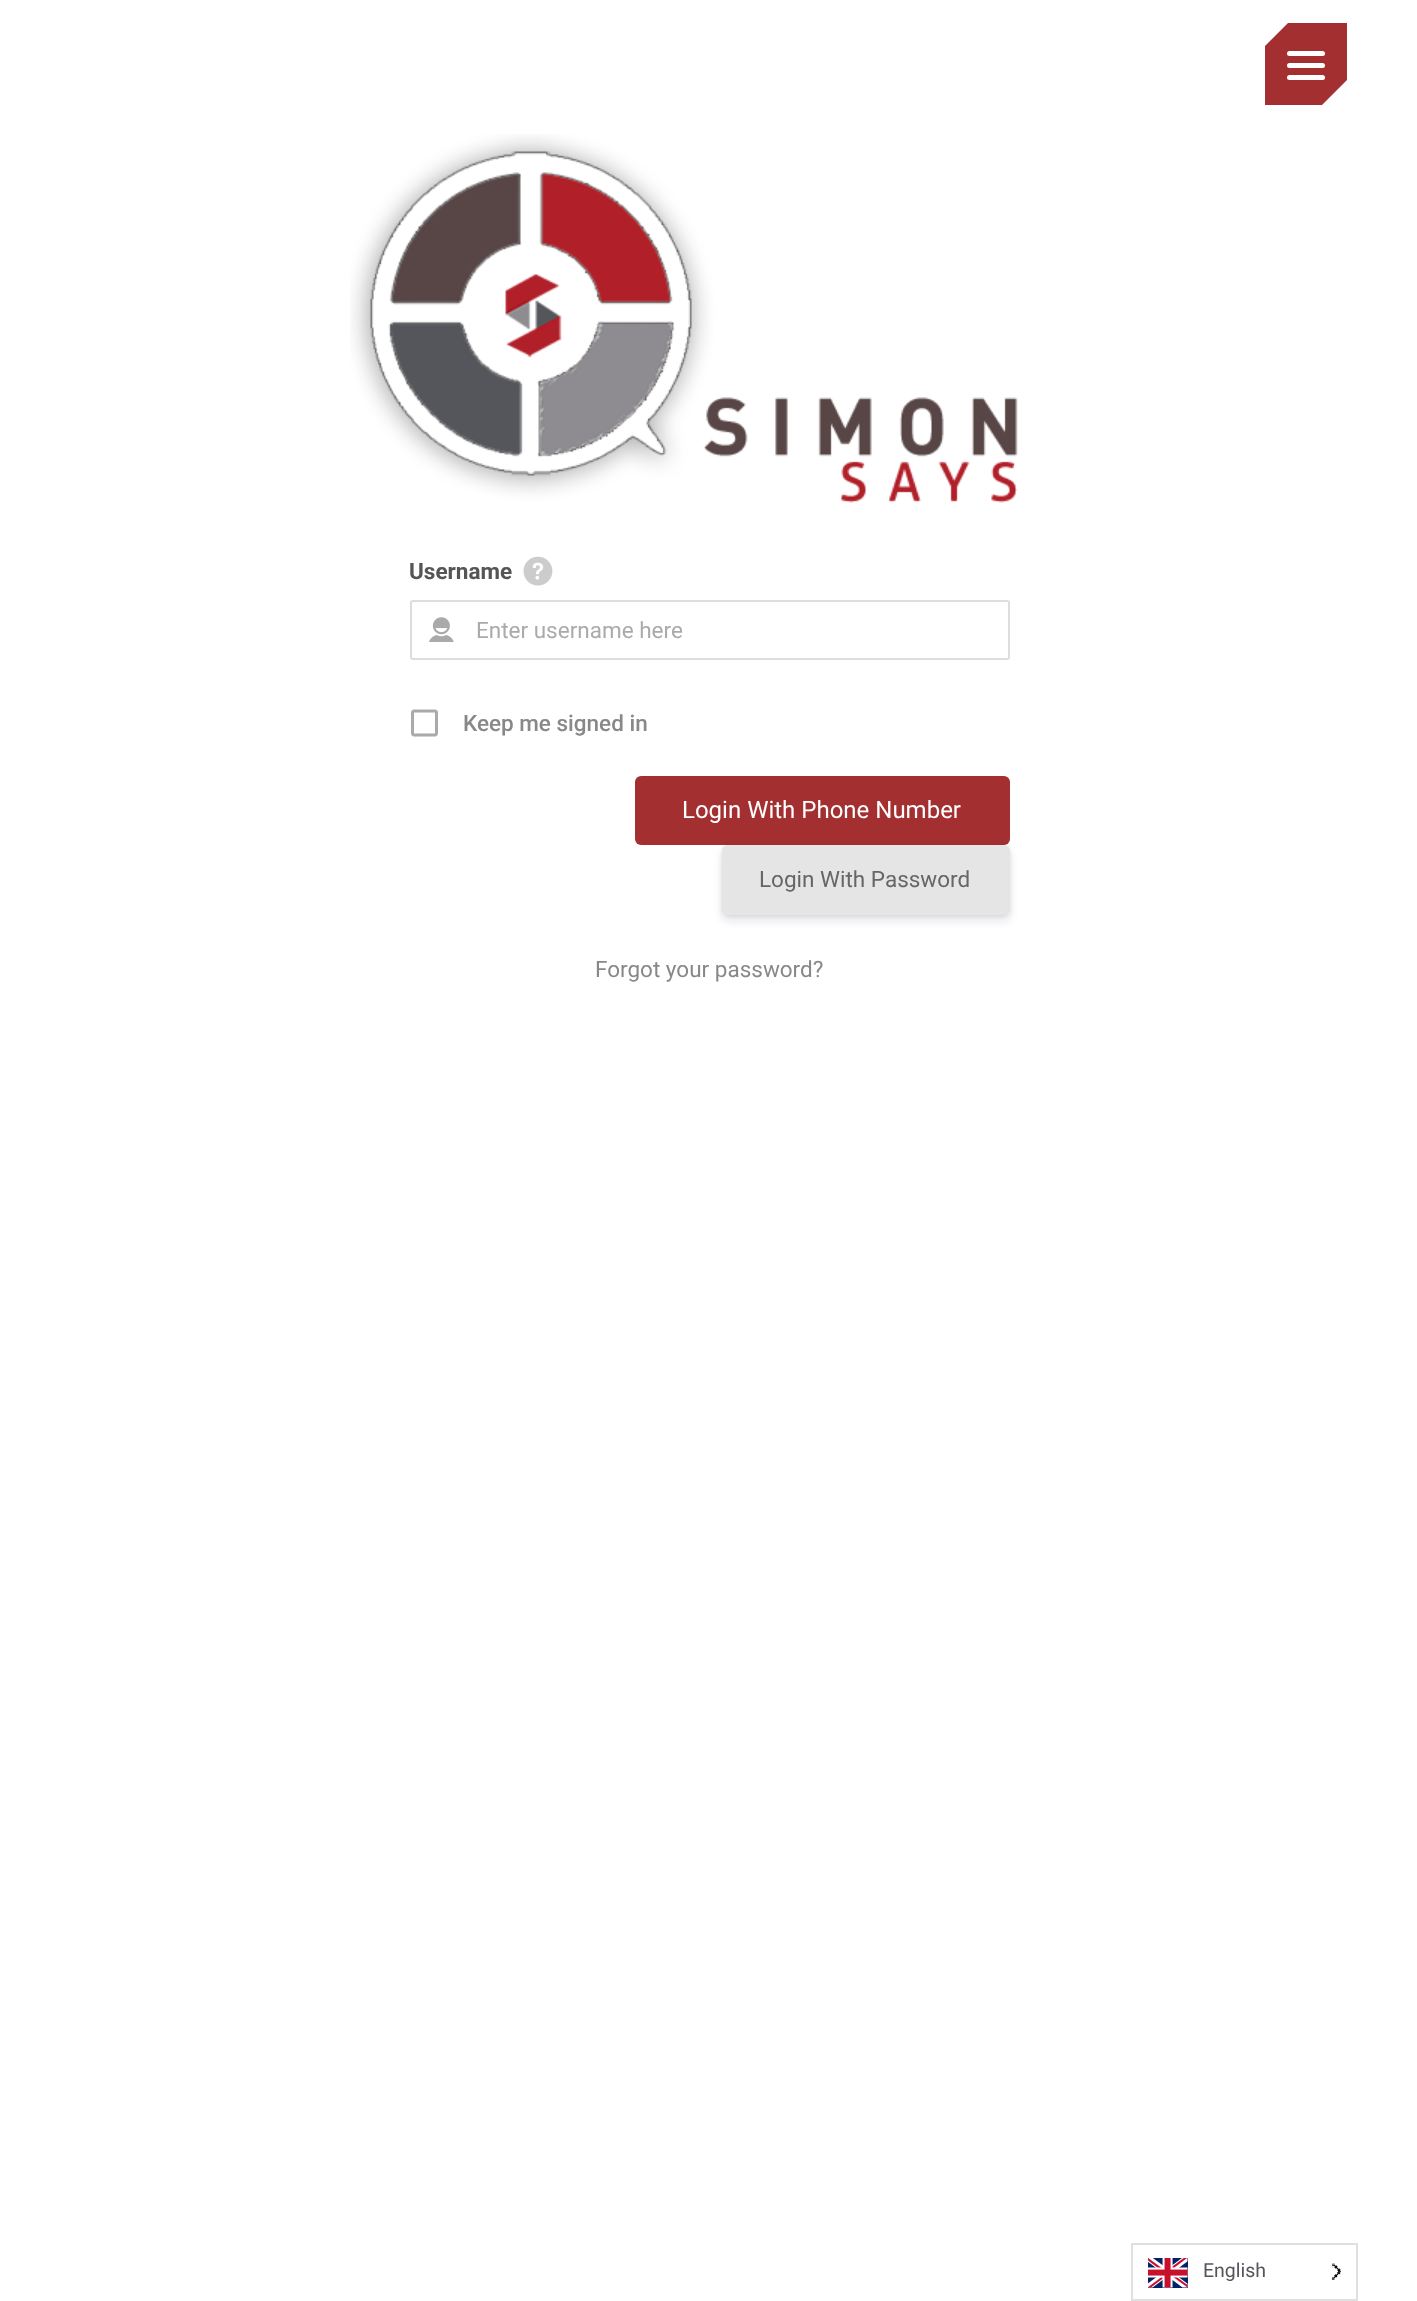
<svg xmlns="http://www.w3.org/2000/svg" width="1417" height="2301" viewBox="0 0 1417 2301">
  <defs>
    <filter id="blur1" x="-50%" y="-200%" width="200%" height="500%"><feGaussianBlur stdDeviation="2"/></filter>
    <filter id="blur2" x="-50%" y="-200%" width="200%" height="500%"><feGaussianBlur stdDeviation="4.5"/></filter>
  </defs>
  <rect width="100%" height="100%" fill="#ffffff"/>
  <path d="M1265 46L1288 23H1347V80L1322 105H1265Z" fill="#a32f30"/>
  <rect x="1287" y="51" width="38" height="5" rx="2.5" fill="#ffffff"/>
  <rect x="1287" y="63" width="38" height="5" rx="2.5" fill="#ffffff"/>
  <rect x="1287" y="75" width="38" height="5" rx="2.5" fill="#ffffff"/>
  <image x="350" y="134" width="668" height="369" href="img1.png"/>
  <text x="409" y="579" font-family="Roboto" font-size="22.5" font-weight="bold" fill="#555555">Username</text>
  <image x="523" y="556" width="30" height="30" href="img2.png"/>
  <rect x="411" y="601" width="598" height="58" rx="2" fill="none" stroke="#dddddd" stroke-width="2"/>
  <image x="429" y="617" width="25" height="25" href="img3.png"/>
  <text x="476" y="638" font-family="Roboto" font-size="22.5" fill="#aaaaaa">Enter username here</text>
  <image x="411" y="709" width="27" height="28" href="img4.png"/>
  <text x="463" y="731" font-family="Roboto" font-size="22.5" font-weight="500" fill="#888888">Keep me signed in</text>
  <rect x="635" y="776" width="375" height="69" rx="6" fill="#a32f30"/>
  <text x="682" y="818" font-family="Roboto" font-size="24" fill="#ffffff">Login With Phone Number</text>
  <rect x="722" y="846" width="288" height="71" rx="6" fill="#000000" fill-opacity="0.08" filter="url(#blur1)"/>
  <rect x="722" y="851" width="288" height="70" rx="6" fill="#32325d" fill-opacity="0.11" filter="url(#blur2)"/>
  <rect x="722" y="845" width="288" height="70" rx="6" fill="#e5e5e5"/>
  <text x="759" y="887" font-family="Roboto" font-size="22.5" fill="#666666">Login With Password</text>
  <text x="595" y="977" font-family="Roboto" font-size="22.5" fill="#888888">Forgot your password?</text>
  <rect x="1132" y="2244" width="225" height="56" fill="none" stroke="#e0e0e0" stroke-width="2"/>
  <image x="1148" y="2258" width="40" height="30" href="img5.png"/>
  <text x="1203" y="2277" font-family="Roboto" font-size="19.5" fill="#54565b">English</text>
  <image x="1332" y="2263" width="9" height="17" href="img6.png"/>
</svg>
